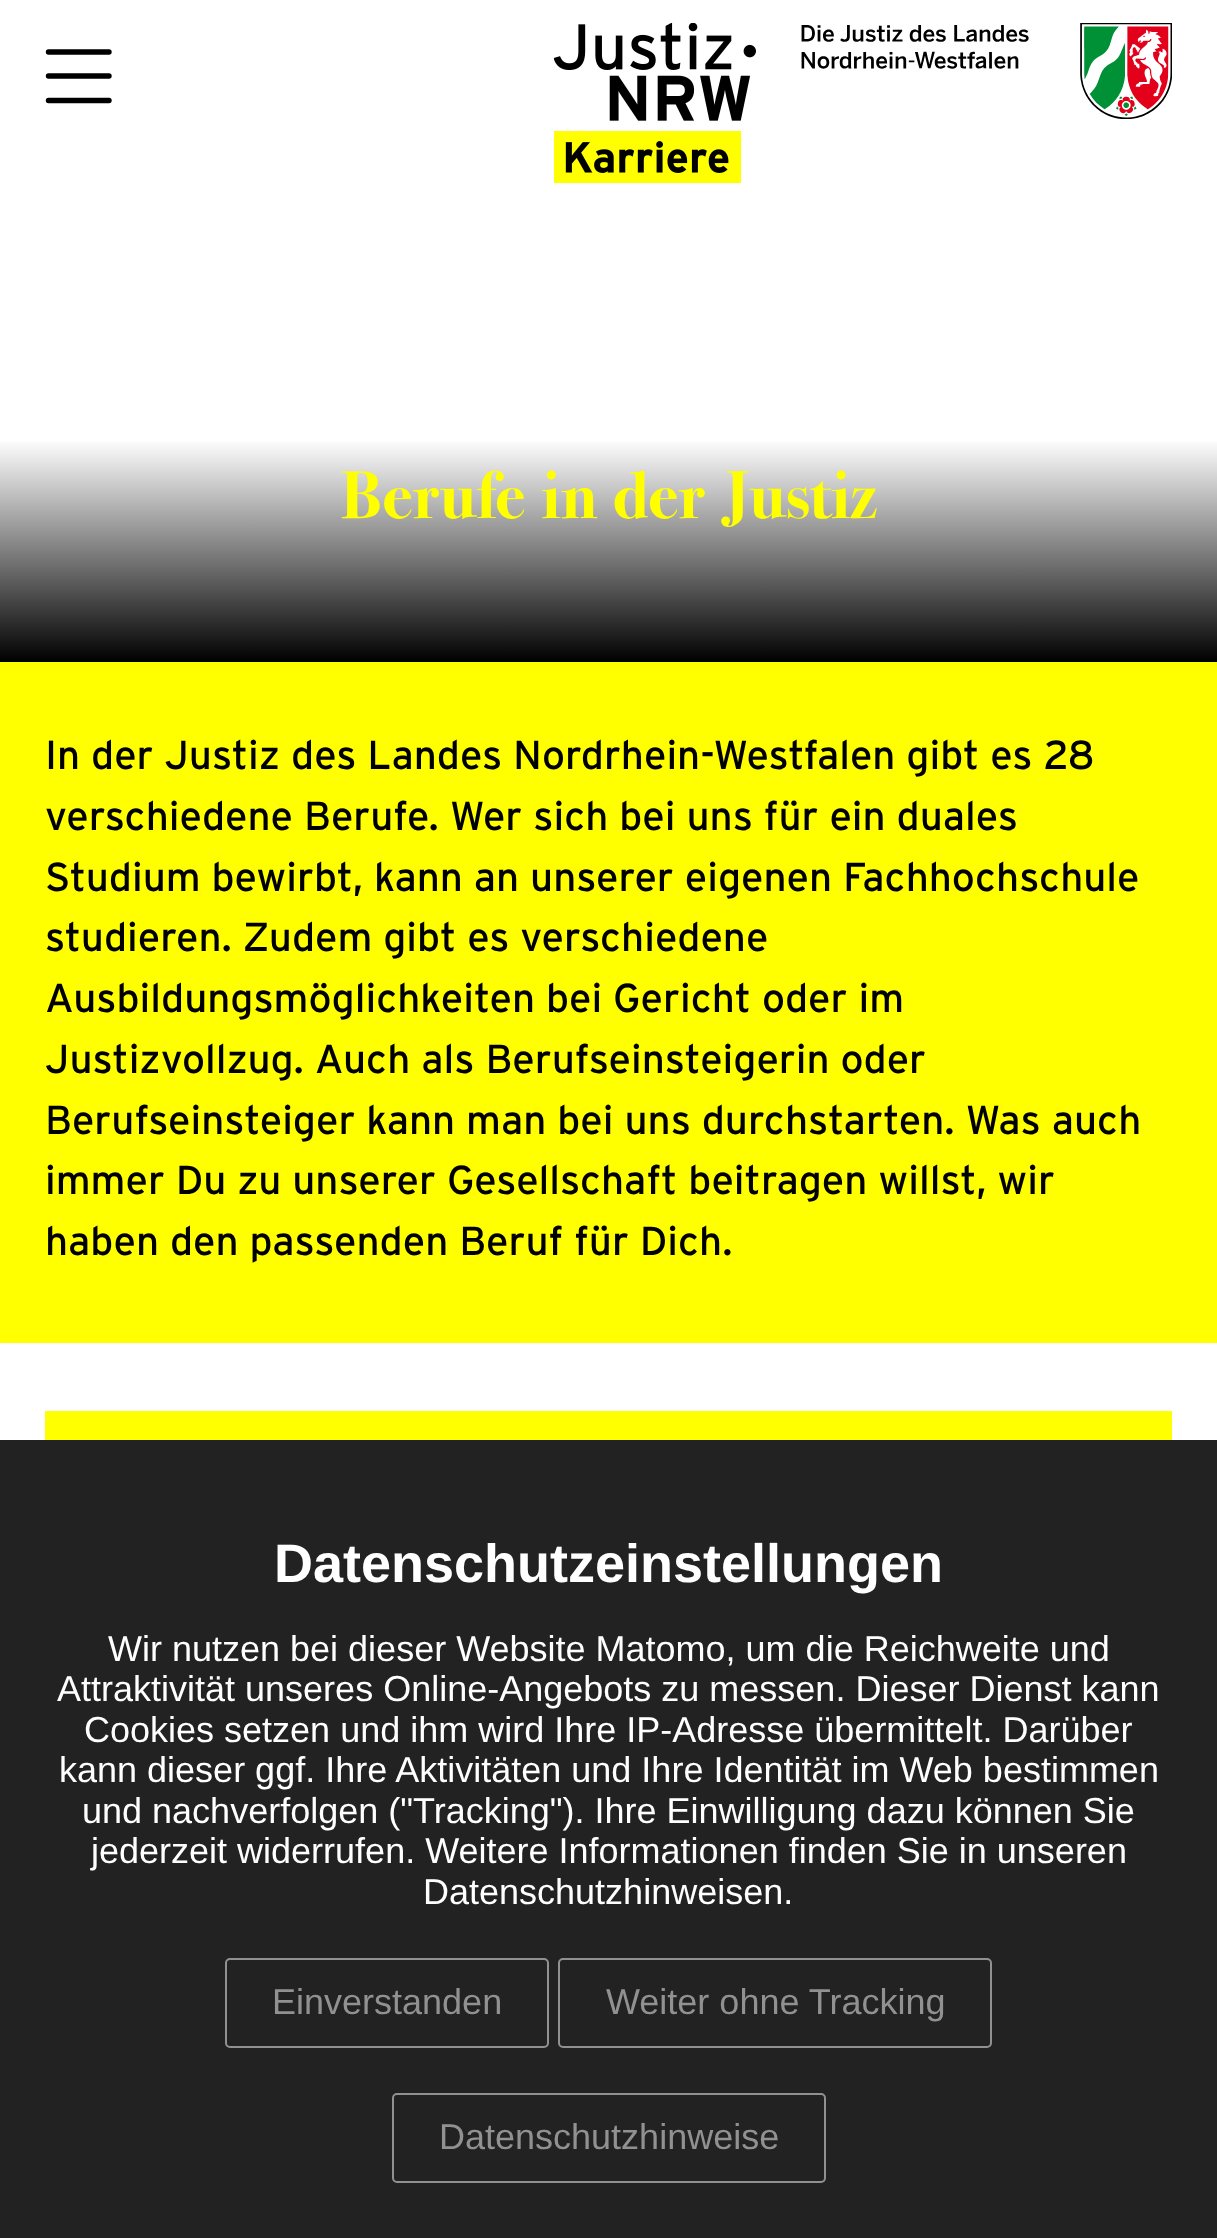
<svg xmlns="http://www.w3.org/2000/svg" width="1217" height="2238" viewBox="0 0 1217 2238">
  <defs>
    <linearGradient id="g1" gradientUnits="userSpaceOnUse" x1="609" y1="439" x2="609" y2="662"><stop offset="0" stop-color="#ffffff"/><stop offset="1" stop-color="#000000"/></linearGradient>
  </defs>
  <rect width="100%" height="100%" fill="#ffffff"/>
  <path d="M48.5 52H109" fill="none" stroke="#000000" stroke-width="5.4" stroke-linecap="round"/>
  <path d="M48.5 76H109" fill="none" stroke="#000000" stroke-width="5.4" stroke-linecap="round"/>
  <path d="M48.5 100.5H109" fill="none" stroke="#000000" stroke-width="5.4" stroke-linecap="round"/>
  <image x="554" y="23" width="202" height="160" href="img1.png"/>
  <image x="801" y="23" width="371" height="96" href="img2.png"/>
  <rect x="0" y="441" width="1217" height="221" fill="url(#g1)"/>
  <text x="341" y="518" font-family="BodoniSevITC" font-size="67.5" font-weight="bold" fill="#ffff00">Berufe in der Justiz</text>
  <rect x="0" y="662" width="1217" height="681" fill="#ffff00"/>
  <text x="45" y="769" font-family="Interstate" font-size="40.5" fill="#000000">In der Justiz des Landes Nordrhein-Westfalen gibt es 28</text>
  <text x="45" y="830" font-family="Interstate" font-size="40.5" fill="#000000">verschiedene Berufe. Wer sich bei uns für ein duales</text>
  <text x="45" y="891" font-family="Interstate" font-size="40.5" fill="#000000">Studium bewirbt, kann an unserer eigenen Fachhochschule</text>
  <text x="45" y="951" font-family="Interstate" font-size="40.5" fill="#000000">studieren. Zudem gibt es verschiedene</text>
  <text x="45" y="1012" font-family="Interstate" font-size="40.5" fill="#000000">Ausbildungsmöglichkeiten bei Gericht oder im</text>
  <text x="45" y="1073" font-family="Interstate" font-size="40.5" fill="#000000">Justizvollzug. Auch als Berufseinsteigerin oder</text>
  <text x="45" y="1134" font-family="Interstate" font-size="40.5" fill="#000000">Berufseinsteiger kann man bei uns durchstarten. Was auch</text>
  <text x="45" y="1194" font-family="Interstate" font-size="40.5" fill="#000000">immer Du zu unserer Gesellschaft beitragen willst, wir</text>
  <text x="45" y="1255" font-family="Interstate" font-size="40.5" fill="#000000">haben den passenden Beruf für Dich.</text>
  <rect x="45" y="1411" width="1127" height="29" fill="#ffff00"/>
  <rect x="0" y="1440" width="1217" height="798" fill="#222222"/>
  <text x="274" y="1582" font-family="Liberation Sans" font-size="54" font-weight="bold" fill="#ffffff">Datenschutzeinstellungen</text>
  <text x="108" y="1661" font-family="Liberation Sans" font-size="36" fill="#ffffff">Wir nutzen bei dieser Website Matomo, um die Reichweite und</text>
  <text x="57" y="1701" font-family="Liberation Sans" font-size="36" fill="#ffffff">Attraktivität unseres Online-Angebots zu messen. Dieser Dienst kann</text>
  <text x="84" y="1742" font-family="Liberation Sans" font-size="36" fill="#ffffff">Cookies setzen und ihm wird Ihre IP-Adresse übermittelt. Darüber</text>
  <text x="59" y="1782" font-family="Liberation Sans" font-size="36" fill="#ffffff">kann dieser ggf. Ihre Aktivitäten und Ihre Identität im Web bestimmen</text>
  <text x="82" y="1823" font-family="Liberation Sans" font-size="36" fill="#ffffff">und nachverfolgen ("Tracking"). Ihre Einwilligung dazu können Sie</text>
  <text x="91" y="1863" font-family="Liberation Sans" font-size="36" fill="#ffffff">jederzeit widerrufen. Weitere Informationen finden Sie in unseren</text>
  <text x="423" y="1904" font-family="Liberation Sans" font-size="36" fill="#ffffff">Datenschutzhinweisen.</text>
  <rect x="226" y="1959" width="322" height="88" rx="4" fill="none" stroke="#919191" stroke-width="2"/>
  <text x="272" y="2014" font-family="Liberation Sans" font-size="36" fill="#919191">Einverstanden</text>
  <rect x="559" y="1959" width="432" height="88" rx="4" fill="none" stroke="#919191" stroke-width="2"/>
  <text x="606" y="2014" font-family="Liberation Sans" font-size="36" fill="#919191">Weiter ohne Tracking</text>
  <rect x="393" y="2094" width="432" height="88" rx="4" fill="none" stroke="#919191" stroke-width="2"/>
  <text x="439" y="2149" font-family="Liberation Sans" font-size="36" fill="#919191">Datenschutzhinweise</text>
</svg>
